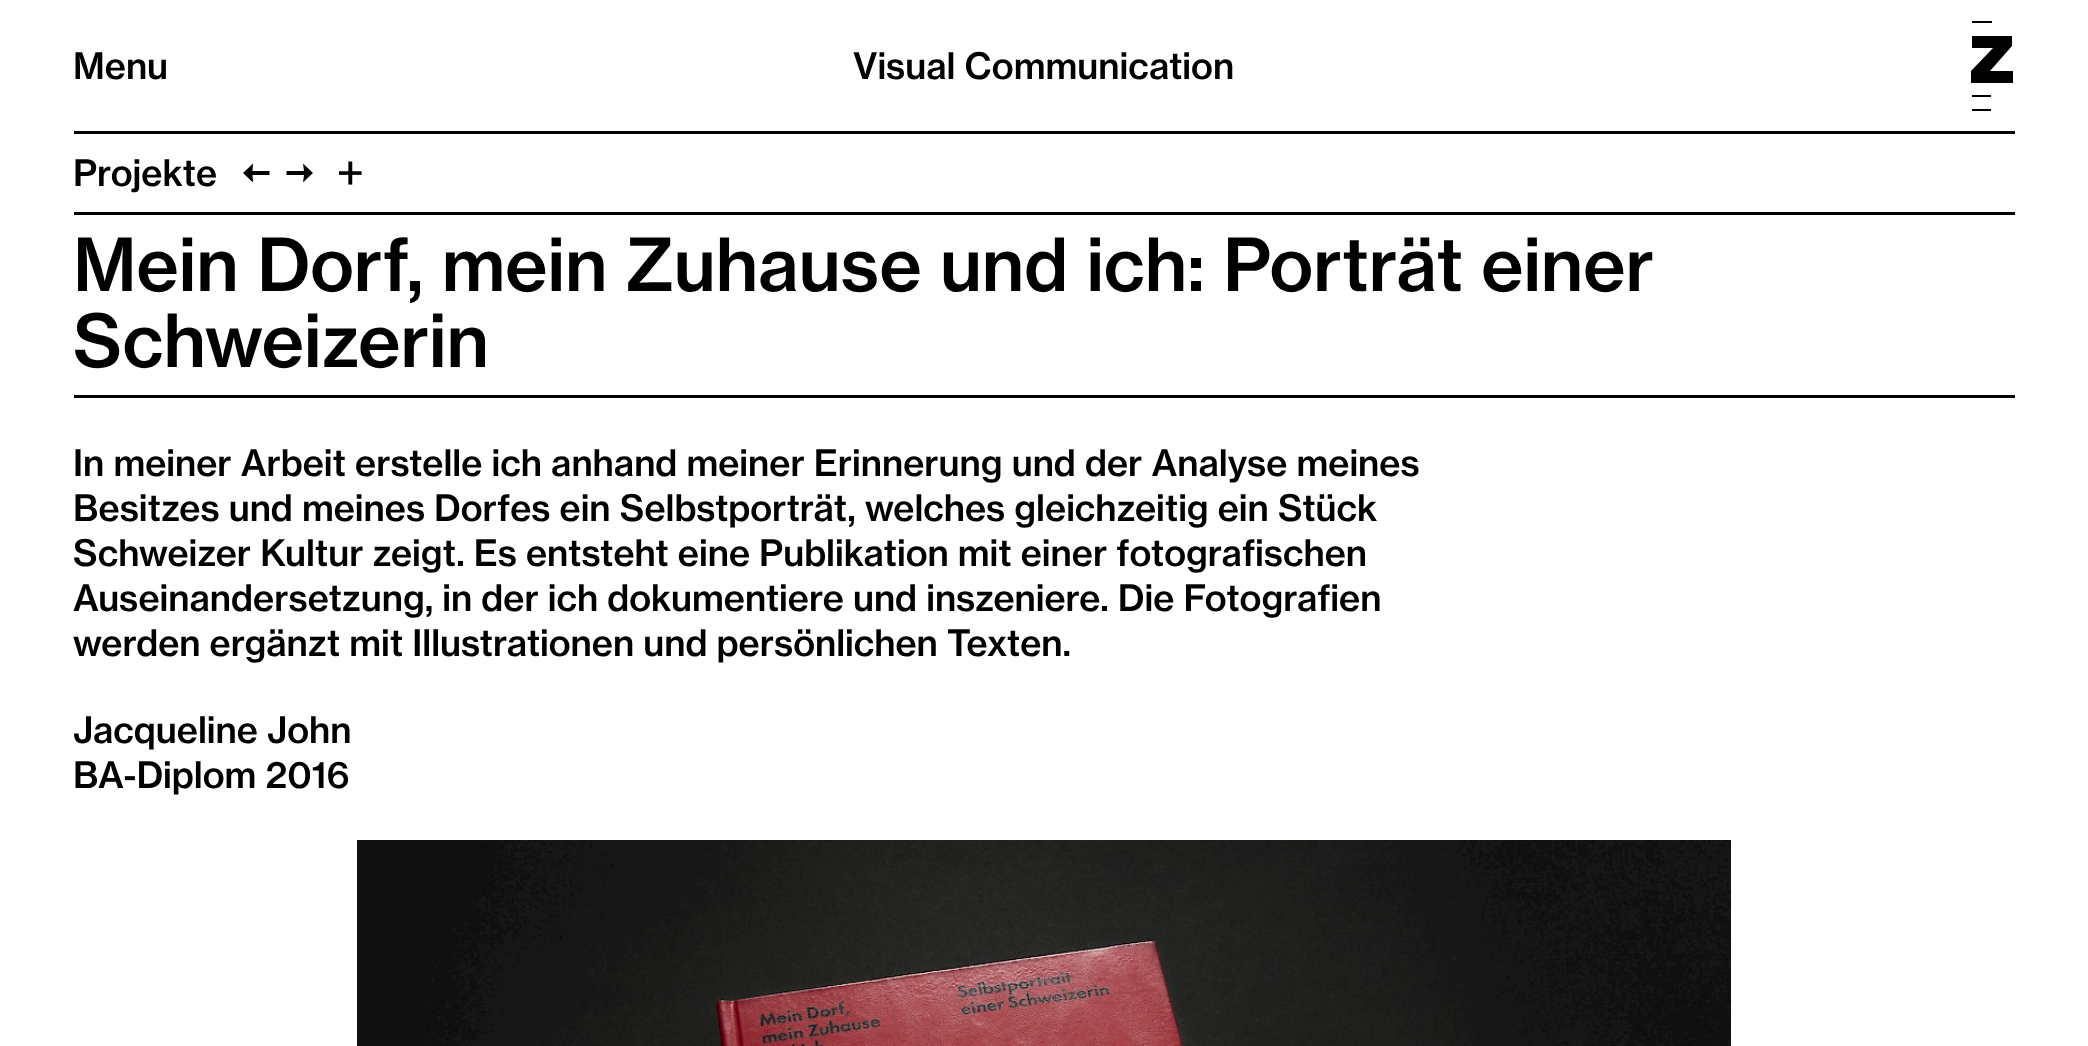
<svg xmlns="http://www.w3.org/2000/svg" width="2088" height="1046" viewBox="0 0 2088 1046">
  <rect width="100%" height="100%" fill="#ffffff"/>
  <rect x="74" y="131" width="1941" height="3" fill="#000000"/>
  <text x="73" y="79" font-family="Neue Haas Grotesk" font-size="36" font-weight="500" fill="#000000">Menu</text>
  <text x="853" y="79" font-family="Neue Haas Grotesk" font-size="36" font-weight="500" fill="#000000">Visual Communication</text>
  <path d="M1991 111H1972V109H1991ZM1991 97H1972V95H1991ZM1992 23H1972V21H1992Z" fill="#000000"/>
  <path d="M1971 83H2013V71H1990L2012 46V36H1972V48H1993L1971 71Z" fill="#000000"/>
  <rect x="74" y="212" width="1941" height="3" fill="#000000"/>
  <text x="73" y="186" font-family="Neue Haas Grotesk" font-size="36" font-weight="500" fill="#000000">Projekte</text>
  <path d="M253 182.5L252.5 175H269.5V171H252.5L253 163.5L243 173Z" fill="#000000"/>
  <path d="M303 182.5L313 173L303 163.5L304 171H286.5V175H304Z" fill="#000000"/>
  <image x="339" y="161" width="23" height="24" href="img1.png"/>
  <rect x="74" y="395" width="1941" height="3" fill="#000000"/>
  <text x="73" y="291" font-family="Neue Haas Grotesk" font-size="72" font-weight="500" fill="#000000">Mein Dorf, mein Zuhause und ich: Porträt einer</text>
  <text x="73" y="367" font-family="Neue Haas Grotesk" font-size="72" font-weight="500" fill="#000000">Schweizerin</text>
  <text x="73" y="476" font-family="Neue Haas Grotesk" font-size="36" font-weight="500" fill="#000000">In meiner Arbeit erstelle ich anhand meiner Erinnerung und der Analyse meines</text>
  <text x="73" y="521" font-family="Neue Haas Grotesk" font-size="36" font-weight="500" fill="#000000">Besitzes und meines Dorfes ein Selbstporträt, welches gleichzeitig ein Stück</text>
  <text x="73" y="566" font-family="Neue Haas Grotesk" font-size="36" font-weight="500" fill="#000000">Schweizer Kultur zeigt. Es entsteht eine Publikation mit einer fotografischen</text>
  <text x="73" y="611" font-family="Neue Haas Grotesk" font-size="36" font-weight="500" fill="#000000">Auseinandersetzung, in der ich dokumentiere und inszeniere. Die Fotografien</text>
  <text x="73" y="656" font-family="Neue Haas Grotesk" font-size="36" font-weight="500" fill="#000000">werden ergänzt mit Illustrationen und persönlichen Texten.</text>
  <text x="73" y="743" font-family="Neue Haas Grotesk" font-size="36" font-weight="500" fill="#000000">Jacqueline John</text>
  <text x="73" y="788" font-family="Neue Haas Grotesk" font-size="36" font-weight="500" fill="#000000">BA-Diplom 2016</text>
  <image x="357" y="840" width="1374" height="206" href="img2.png"/>
</svg>
